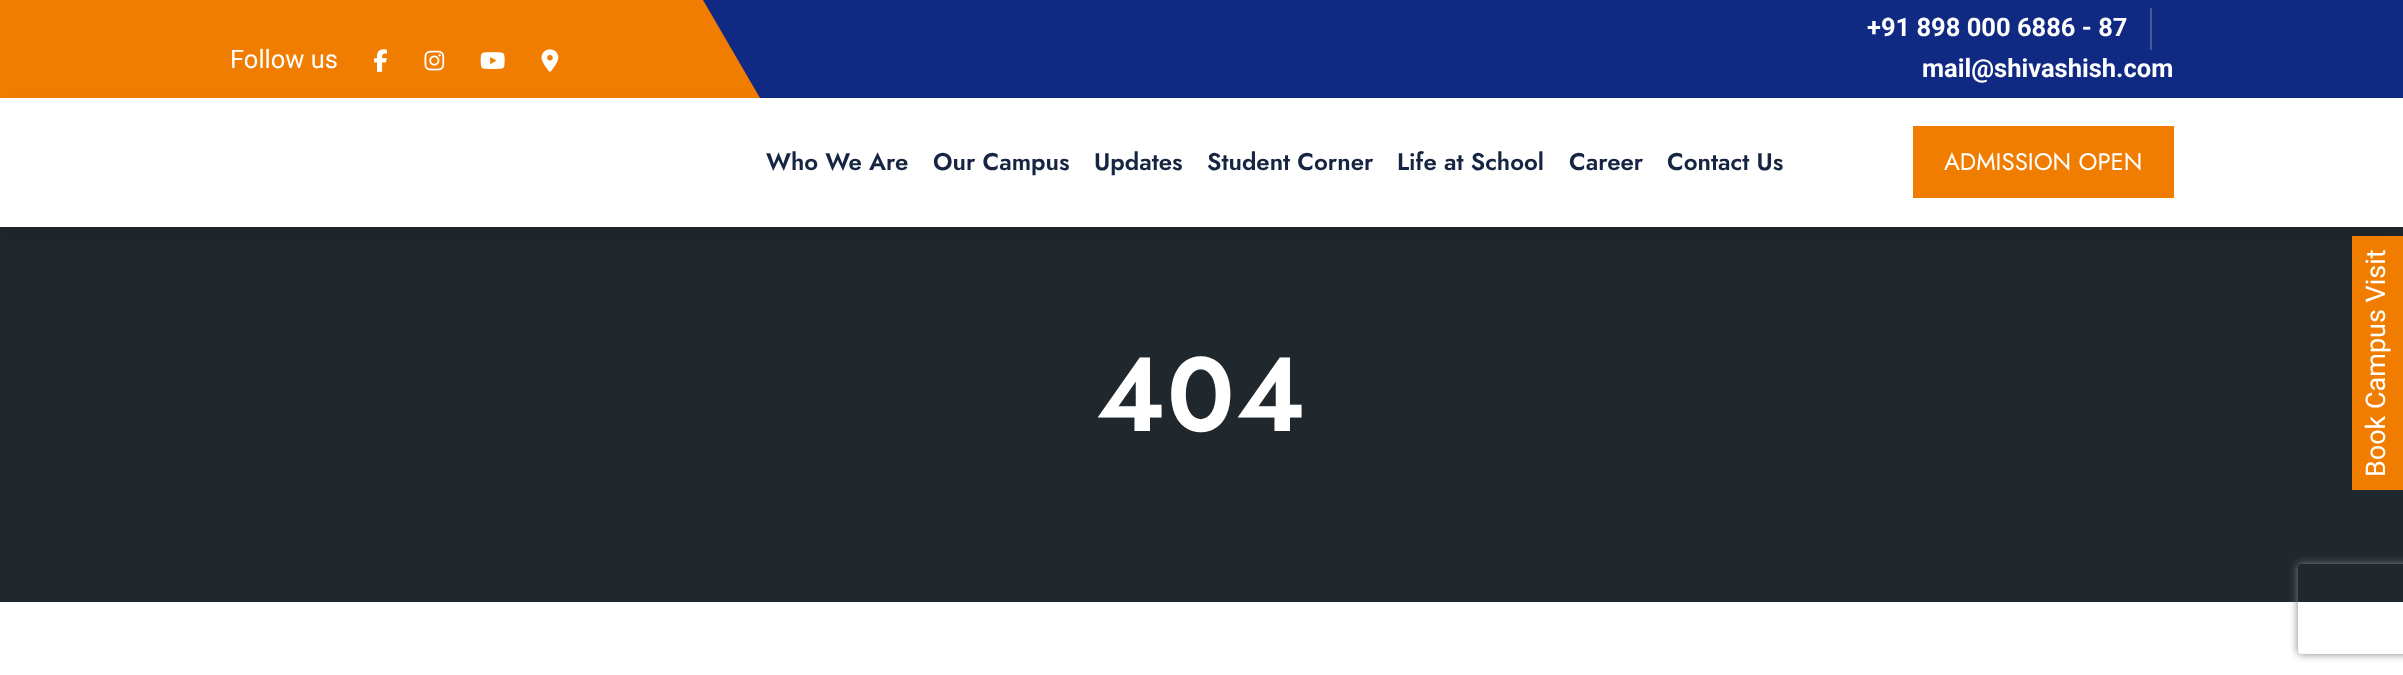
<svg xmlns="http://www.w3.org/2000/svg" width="2403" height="675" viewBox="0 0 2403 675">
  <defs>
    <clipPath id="clip1"><path d="M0 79H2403V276H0ZM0 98H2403V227H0Z" clip-rule="evenodd"/></clipPath>
    <filter id="blur1" x="-50%" y="-200%" width="200%" height="500%"><feGaussianBlur stdDeviation="11"/></filter>
    <clipPath id="clip2"><path d="M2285 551H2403V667H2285ZM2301 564H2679C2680.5 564 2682 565.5 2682 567V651C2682 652.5 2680.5 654 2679 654H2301C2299.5 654 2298 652.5 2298 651V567C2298 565.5 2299.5 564 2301 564Z" clip-rule="evenodd"/></clipPath>
    <filter id="blur2" x="-50%" y="-200%" width="200%" height="500%"><feGaussianBlur stdDeviation="4"/></filter>
  </defs>
  <rect width="100%" height="100%" fill="#ffffff"/>
  <rect x="703" y="0" width="1700" height="98" fill="#102a83"/>
  <path d="M-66 0H703L760 98H-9Z" fill="#f07c00"/>
  <text x="230" y="68" font-family="Roboto" font-size="25.5" fill="#ffffff">Follow us</text>
  <image x="374" y="49" width="13" height="23" href="img1.png"/>
  <image x="424" y="50" width="21" height="21" href="img2.png"/>
  <image x="480" y="52" width="25" height="17" href="img3.png"/>
  <image x="541" y="49" width="18" height="23" href="img4.png"/>
  <rect x="2150" y="8" width="2" height="42" fill="#44589b"/>
  <text x="1867" y="36" font-family="Roboto" font-size="25.5" font-weight="bold" fill="#ffffff">+91 898 000 6886 - 87</text>
  <text x="1922" y="77" font-family="Roboto" font-size="25.5" font-weight="bold" fill="#ffffff">mail@shivashish.com</text>
  <rect x="0" y="227" width="2403" height="375" fill="#20282e"/>
  <g clip-path="url(#clip1)">
    <rect x="0" y="113" width="2403" height="129" fill="#191919" fill-opacity="0.1" filter="url(#blur1)"/>
  </g>
  <text x="766" y="170" font-family="Jost" font-size="24" font-weight="600" fill="#162542">Who We Are</text>
  <text x="933" y="170" font-family="Jost" font-size="24" font-weight="600" fill="#162542">Our Campus</text>
  <text x="1094" y="170" font-family="Jost" font-size="24" font-weight="600" fill="#162542">Updates</text>
  <text x="1207" y="170" font-family="Jost" font-size="24" font-weight="600" fill="#162542">Student Corner</text>
  <text x="1397" y="170" font-family="Jost" font-size="24" font-weight="600" fill="#162542">Life at School</text>
  <text x="1569" y="170" font-family="Jost" font-size="24" font-weight="600" fill="#162542">Career</text>
  <text x="1667" y="170" font-family="Jost" font-size="24" font-weight="600" fill="#162542">Contact Us</text>
  <rect x="1913" y="126" width="261" height="72" fill="#f07c00"/>
  <text x="1944" y="170" font-family="Jost" font-size="24" fill="#ffffff">ADMISSION OPEN</text>
  <text x="1096" y="431" font-family="Jost" font-size="105" font-weight="600" letter-spacing="1.5" fill="#ffffff">404</text>
  <rect x="2352" y="236" width="51" height="254" fill="#f07d00"/>
  <text x="2385" y="477" transform="rotate(-90 2385 477)" font-family="Roboto" font-size="27" fill="#ffffff">Book Campus Visit</text>
  <g clip-path="url(#clip2)">
    <rect x="2298" y="564" width="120" height="90" rx="3" fill="#808080" filter="url(#blur2)"/>
  </g>
</svg>
